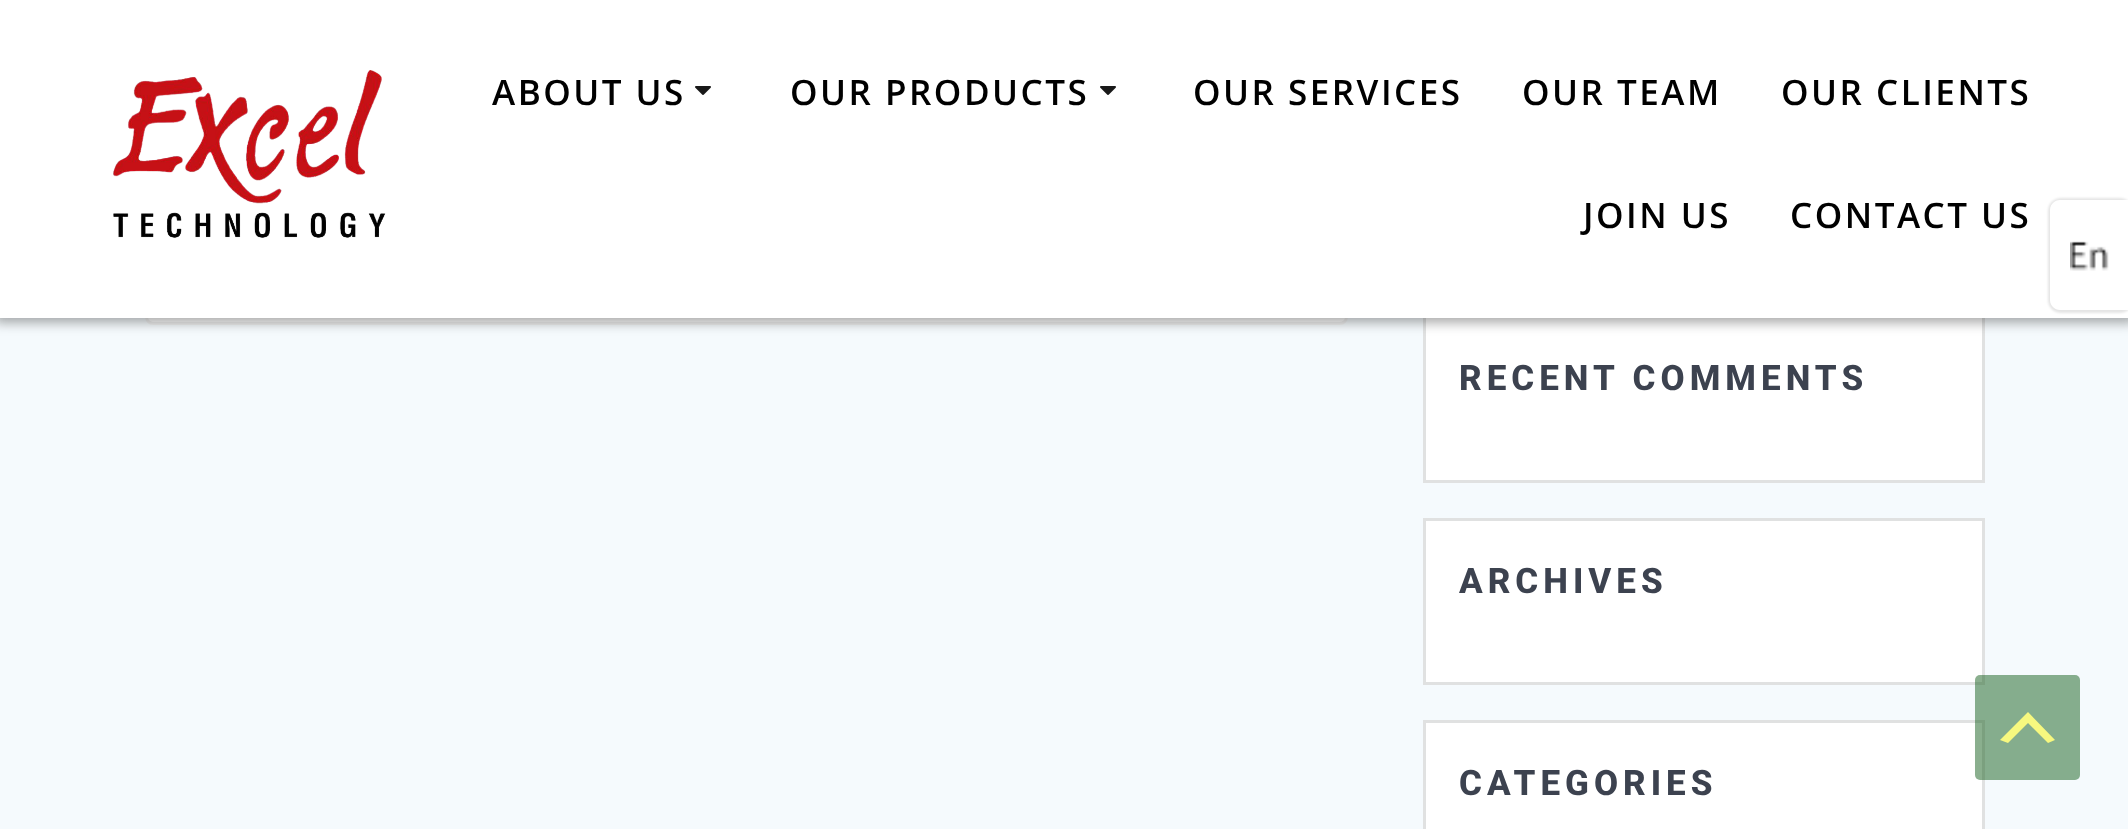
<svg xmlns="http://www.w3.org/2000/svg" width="2128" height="829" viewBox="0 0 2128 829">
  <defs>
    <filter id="blur1" x="-50%" y="-200%" width="200%" height="500%"><feGaussianBlur stdDeviation="6"/></filter>
    <filter id="blur2" x="-50%" y="-200%" width="200%" height="500%"><feGaussianBlur stdDeviation="1"/></filter>
  </defs>
  <rect width="100%" height="100%" fill="#f5fafd"/>
  <rect x="146.5" y="239.5" width="1200" height="84" rx="6.5" fill="#ffffff" stroke="#f1f1f1" stroke-width="3"/>
  <rect x="1424.5" y="316.5" width="559" height="165" fill="#ffffff" stroke="#e0e1e1" stroke-width="3"/>
  <rect x="-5" y="-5" width="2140" height="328" fill="#000000" fill-opacity="0.33" filter="url(#blur1)"/>
  <rect x="0" y="0" width="2128" height="318" fill="#ffffff"/>
  <image x="113" y="70" width="273" height="168" href="img1.png"/>
  <text x="492" y="105" font-family="Open Sans" font-size="35" font-weight="600" letter-spacing="2.5" fill="#000000">ABOUT US</text>
  <image x="695" y="86" width="16" height="9" href="img2.png"/>
  <text x="790" y="105" font-family="Open Sans" font-size="35" font-weight="600" letter-spacing="2.5" fill="#000000">OUR PRODUCTS</text>
  <image x="1100" y="86" width="16" height="9" href="img2.png"/>
  <text x="1193" y="105" font-family="Open Sans" font-size="35" font-weight="600" letter-spacing="2.5" fill="#000000">OUR SERVICES</text>
  <text x="1522" y="105" font-family="Open Sans" font-size="35" font-weight="600" letter-spacing="2.5" fill="#000000">OUR TEAM</text>
  <text x="1781" y="105" font-family="Open Sans" font-size="35" font-weight="600" letter-spacing="2.5" fill="#000000">OUR CLIENTS</text>
  <text x="1583" y="228" font-family="Open Sans" font-size="35" font-weight="600" letter-spacing="2.5" fill="#000000">JOIN US</text>
  <text x="1790" y="228" font-family="Open Sans" font-size="35" font-weight="600" letter-spacing="2.5" fill="#000000">CONTACT US</text>
  <rect x="2048" y="198" width="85" height="115" rx="13" fill="#000000" fill-opacity="0.1" filter="url(#blur2)"/>
  <path d="M2060 200H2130V310H2060C2054.5 310 2050 305.5 2050 300V210C2050 204.5 2054.5 200 2060 200Z" fill="#ffffff"/>
  <image x="2070" y="241" width="39" height="30" href="img3.png"/>
  <text x="1459" y="390" font-family="Roboto" font-size="35" font-weight="800" letter-spacing="5" fill="#3c424f">RECENT COMMENTS</text>
  <rect x="1424.5" y="519.5" width="559" height="164" fill="#ffffff" stroke="#e0e1e1" stroke-width="3"/>
  <text x="1459" y="593" font-family="Roboto" font-size="35" font-weight="800" letter-spacing="5" fill="#3c424f">ARCHIVES</text>
  <rect x="1424.5" y="721.5" width="559" height="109" fill="#ffffff" stroke="#e0e1e1" stroke-width="3"/>
  <text x="1459" y="795" font-family="Roboto" font-size="35" font-weight="800" letter-spacing="5" fill="#3c424f">CATEGORIES</text>
  <rect x="1975" y="675" width="105" height="105" rx="5" fill="#16601e" fill-opacity="0.5"/>
  <path d="M2048 743L2028 723L2008 743L2000 740L2028 712L2055 740Z" fill="#f7f87f"/>
</svg>
